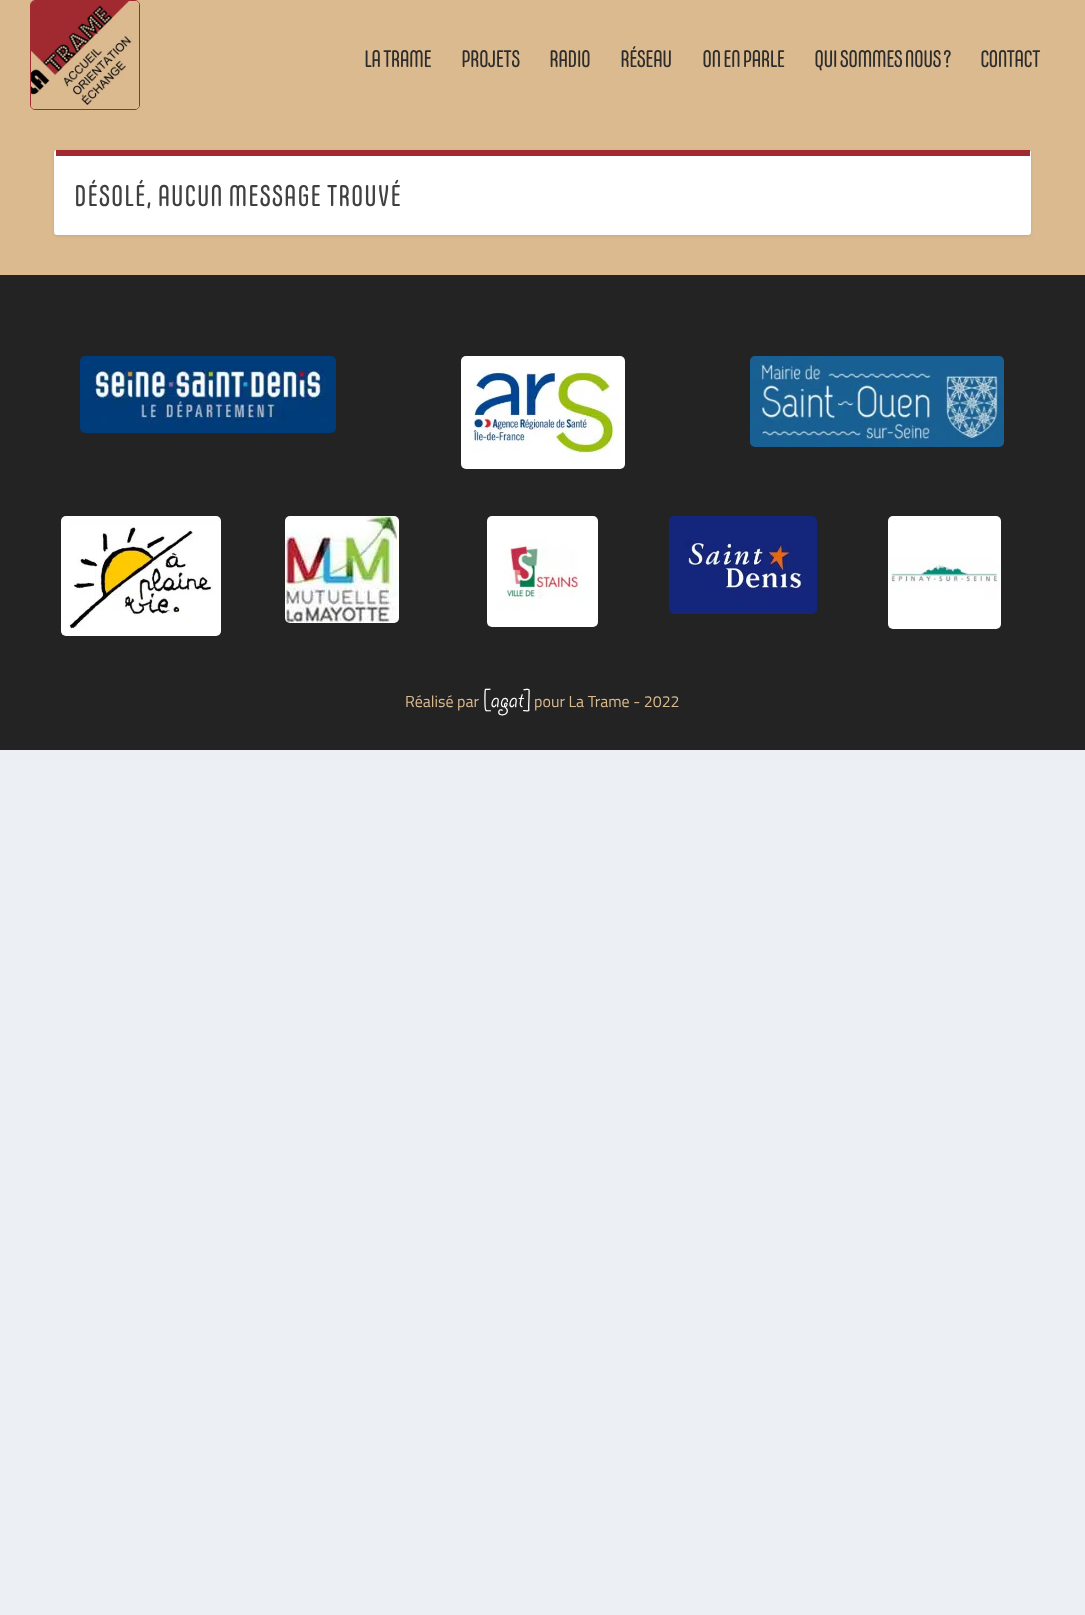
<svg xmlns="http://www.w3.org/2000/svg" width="1085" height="1615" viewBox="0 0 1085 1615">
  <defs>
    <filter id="blur1" x="-50%" y="-200%" width="200%" height="500%"><feGaussianBlur stdDeviation="1.5"/></filter>
  </defs>
  <rect width="100%" height="100%" fill="#ecf0f5"/>
  <rect x="0" y="0" width="1085" height="275" fill="#dbba8f"/>
  <rect x="30.5" y="0.5" width="109" height="109" rx="4.5" fill="none" stroke="#a12a30"/>
  <image x="31" y="1" width="108" height="108" href="img1.png"/>
  <text x="364" y="67" font-family="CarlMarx" font-size="24" letter-spacing="-1" fill="#2d2d2d">LA TRAME</text>
  <text x="461" y="67" font-family="CarlMarx" font-size="24" letter-spacing="-1" fill="#2d2d2d">PROJETS</text>
  <text x="549" y="67" font-family="CarlMarx" font-size="24" letter-spacing="-1" fill="#2d2d2d">RADIO</text>
  <text x="620" y="67" font-family="CarlMarx" font-size="24" letter-spacing="-1" fill="#2d2d2d">RÉSEAU</text>
  <text x="702" y="67" font-family="CarlMarx" font-size="24" letter-spacing="-1" fill="#2d2d2d">ON EN PARLE</text>
  <text x="814" y="67" font-family="CarlMarx" font-size="24" letter-spacing="-1" fill="#2d2d2d">QUI SOMMES NOUS ?</text>
  <text x="980" y="67" font-family="CarlMarx" font-size="24" letter-spacing="-1" fill="#2d2d2d">CONTACT</text>
  <rect x="54" y="151" width="977" height="85" rx="3" fill="#000000" fill-opacity="0.1" filter="url(#blur1)"/>
  <rect x="54" y="150" width="977" height="85" rx="3" fill="#ffffff"/>
  <rect x="56" y="150" width="974" height="6" fill="#a12a30"/>
  <text x="74" y="206" font-family="CarlMarx" font-size="30" letter-spacing="0.5" fill="#404040">DÉSOLÉ, AUCUN MESSAGE TROUVÉ</text>
  <rect x="0" y="275" width="1085" height="475" fill="#232323"/>
  <image x="80" y="356" width="256" height="77" href="img2.png"/>
  <image x="461" y="356" width="164" height="113" href="img3.png"/>
  <image x="750" y="356" width="254" height="91" href="img4.png"/>
  <image x="61" y="516" width="160" height="120" href="img5.png"/>
  <image x="285" y="516" width="114" height="107" href="img6.png"/>
  <image x="487" y="516" width="111" height="111" href="img7.png"/>
  <image x="669" y="516" width="148" height="98" href="img8.png"/>
  <image x="888" y="516" width="113" height="113" href="img9.png"/>
  <text x="405" y="707" font-family="Titillium Web" font-size="16" fill="#dbba8f">Réalisé par</text>
  <text x="483" y="707" font-family="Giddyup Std" font-size="27" fill="#ffffff">[agat]</text>
  <text x="534" y="707" font-family="Titillium Web" font-size="16" fill="#dbba8f">pour La Trame - 2022</text>
</svg>
